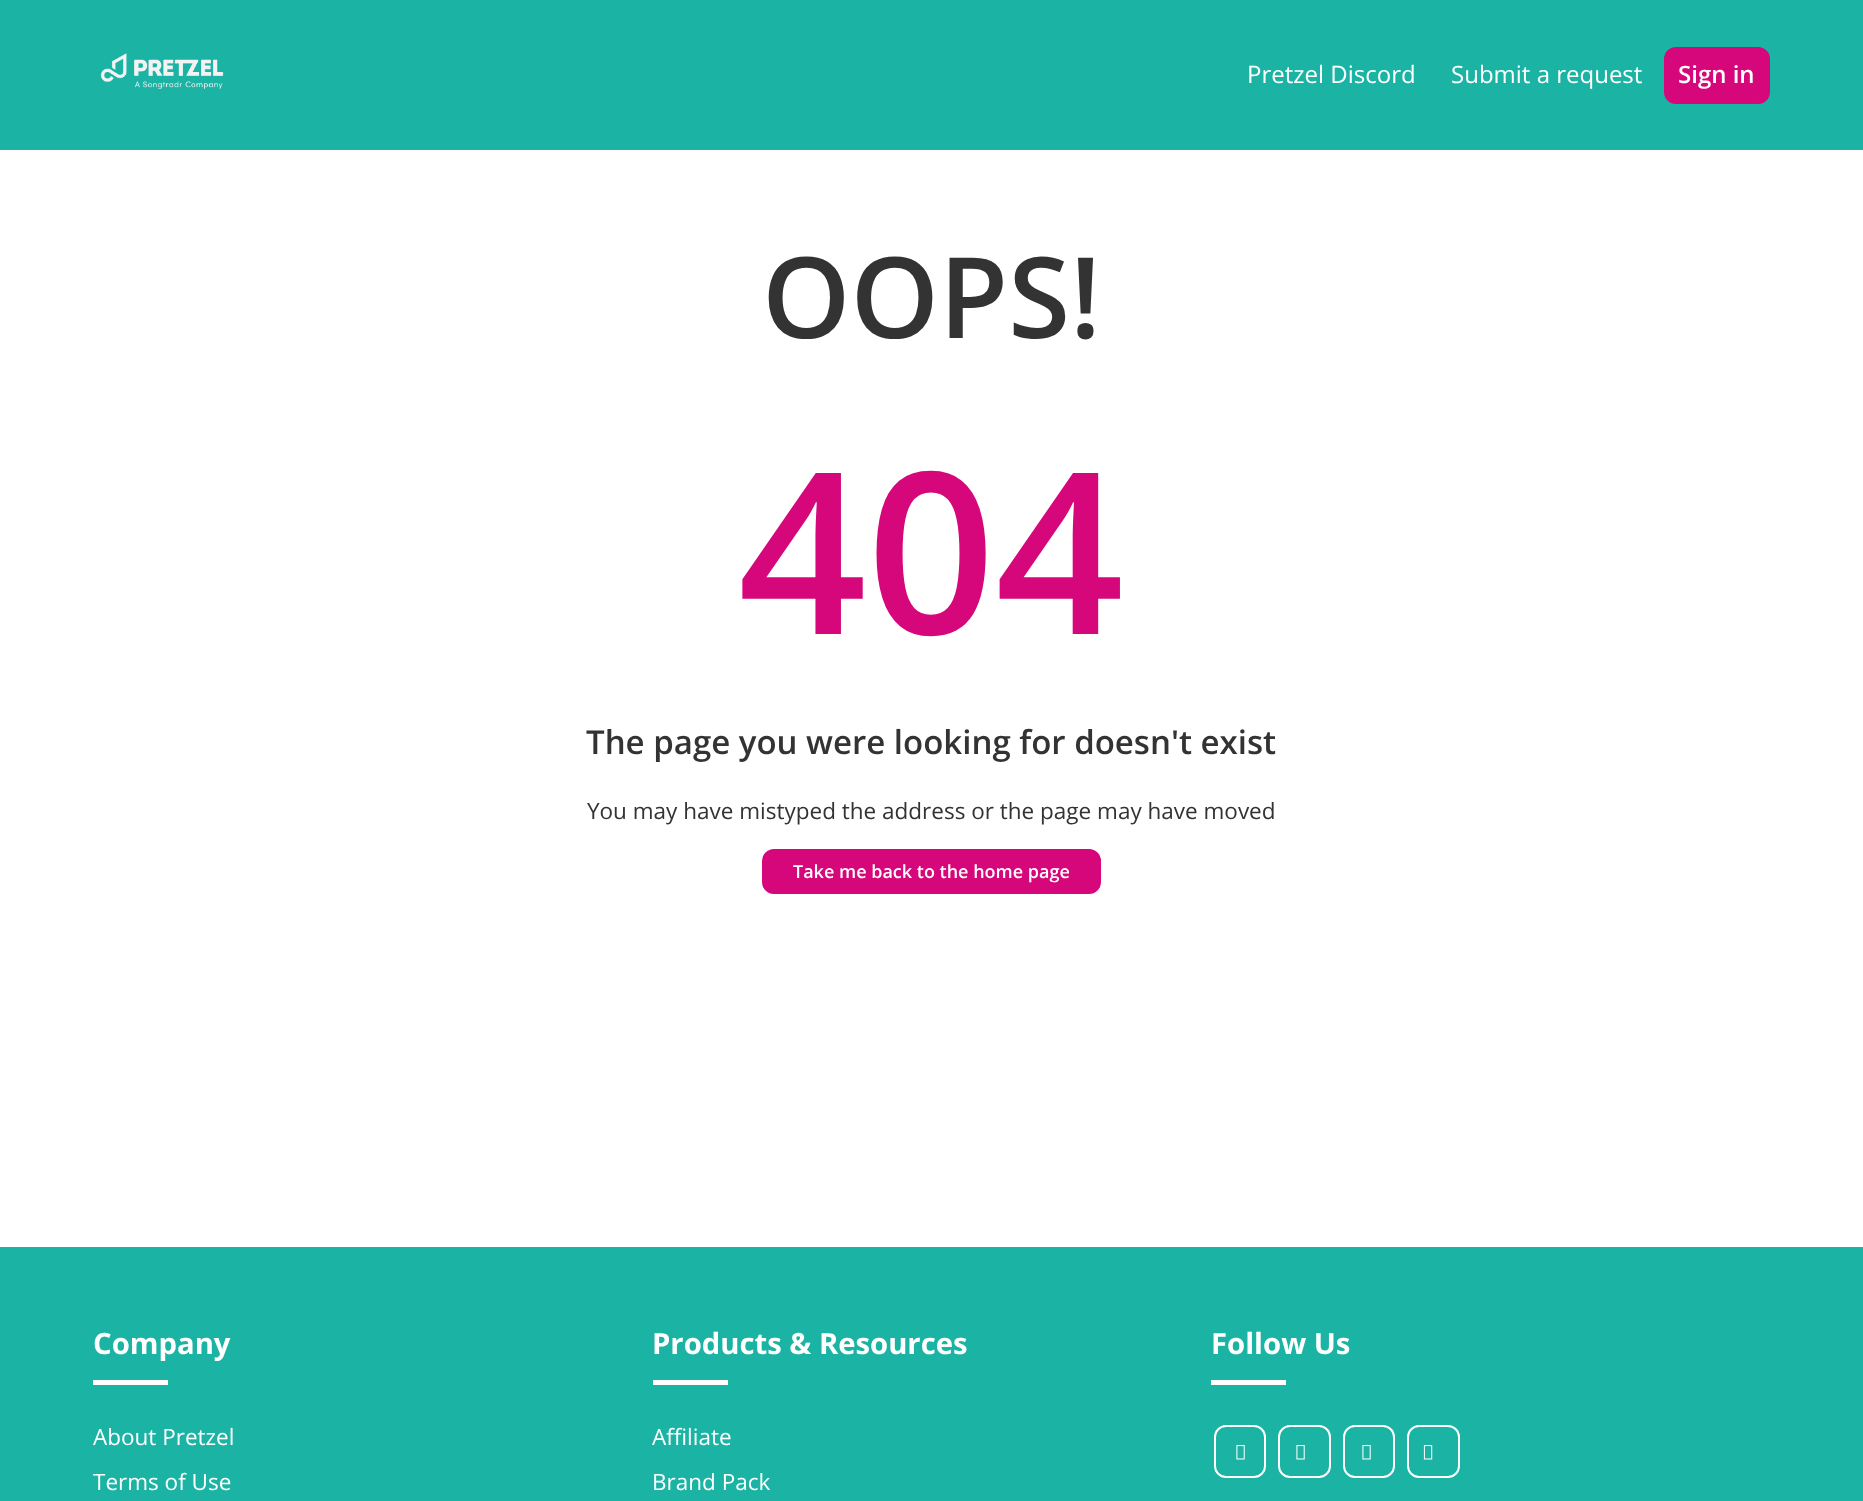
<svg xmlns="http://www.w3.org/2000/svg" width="1863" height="1501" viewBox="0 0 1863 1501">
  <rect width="100%" height="100%" fill="#ffffff"/>
  <rect x="0" y="0" width="1863" height="150" fill="#1bb3a4"/>
  <image x="100" y="53" width="124" height="36" href="img1.png"/>
  <text x="1247" y="83" font-family="Open Sans" font-size="24" fill="#ffffff">Pretzel Discord</text>
  <text x="1451" y="83" font-family="Open Sans" font-size="24" fill="#ffffff">Submit a request</text>
  <rect x="1664" y="47" width="106" height="57" rx="12" fill="#d6067b"/>
  <text x="1678" y="83" font-family="Open Sans" font-size="24" font-weight="600" fill="#ffffff">Sign in</text>
  <text x="762" y="338" font-family="Open Sans" font-size="112.5" font-weight="600" fill="#333333">OOPS!</text>
  <text x="738" y="634" font-family="Open Sans" font-size="225" font-weight="600" fill="#d6067b">404</text>
  <text x="586" y="754" font-family="Open Sans" font-size="33" font-weight="600" fill="#333333">The page you were looking for doesn't exist</text>
  <text x="587" y="819" font-family="Open Sans" font-size="22.5" fill="#333333">You may have mistyped the address or the page may have moved</text>
  <rect x="763" y="850" width="337" height="43" rx="11" fill="#d6067b" stroke="#d6067b" stroke-width="2"/>
  <text x="793" y="878" font-family="Open Sans" font-size="18" font-weight="600" fill="#ffffff">Take me back to the home page</text>
  <rect x="0" y="1247" width="1863" height="254" fill="#1bb3a4"/>
  <text x="93" y="1354" font-family="Open Sans" font-size="29.25" font-weight="bold" fill="#ffffff">Company</text>
  <rect x="93" y="1380" width="75" height="5" fill="#ffffff"/>
  <text x="93" y="1445" font-family="Open Sans" font-size="22.5" fill="#ffffff">About Pretzel</text>
  <text x="93" y="1490" font-family="Open Sans" font-size="22.5" fill="#ffffff">Terms of Use</text>
  <text x="652" y="1354" font-family="Open Sans" font-size="29.25" font-weight="bold" fill="#ffffff">Products &amp; Resources</text>
  <rect x="653" y="1380" width="75" height="5" fill="#ffffff"/>
  <text x="652" y="1445" font-family="Open Sans" font-size="22.5" fill="#ffffff">Affiliate</text>
  <text x="652" y="1490" font-family="Open Sans" font-size="22.5" fill="#ffffff">Brand Pack</text>
  <text x="1211" y="1354" font-family="Open Sans" font-size="29.25" font-weight="bold" fill="#ffffff">Follow Us</text>
  <rect x="1211" y="1380" width="75" height="5" fill="#ffffff"/>
  <rect x="1215" y="1426" width="50" height="51" rx="11" fill="none" stroke="#ffffff" stroke-width="2"/>
  <image x="1236" y="1445" width="9" height="15" href="img2.png"/>
  <rect x="1279" y="1426" width="51" height="51" rx="11" fill="none" stroke="#ffffff" stroke-width="2"/>
  <image x="1296" y="1445" width="9" height="15" href="img2.png"/>
  <rect x="1344" y="1426" width="50" height="51" rx="11" fill="none" stroke="#ffffff" stroke-width="2"/>
  <image x="1362" y="1445" width="9" height="15" href="img2.png"/>
  <rect x="1408" y="1426" width="51" height="51" rx="11" fill="none" stroke="#ffffff" stroke-width="2"/>
  <image x="1423" y="1445" width="10" height="15" href="img3.png"/>
</svg>
